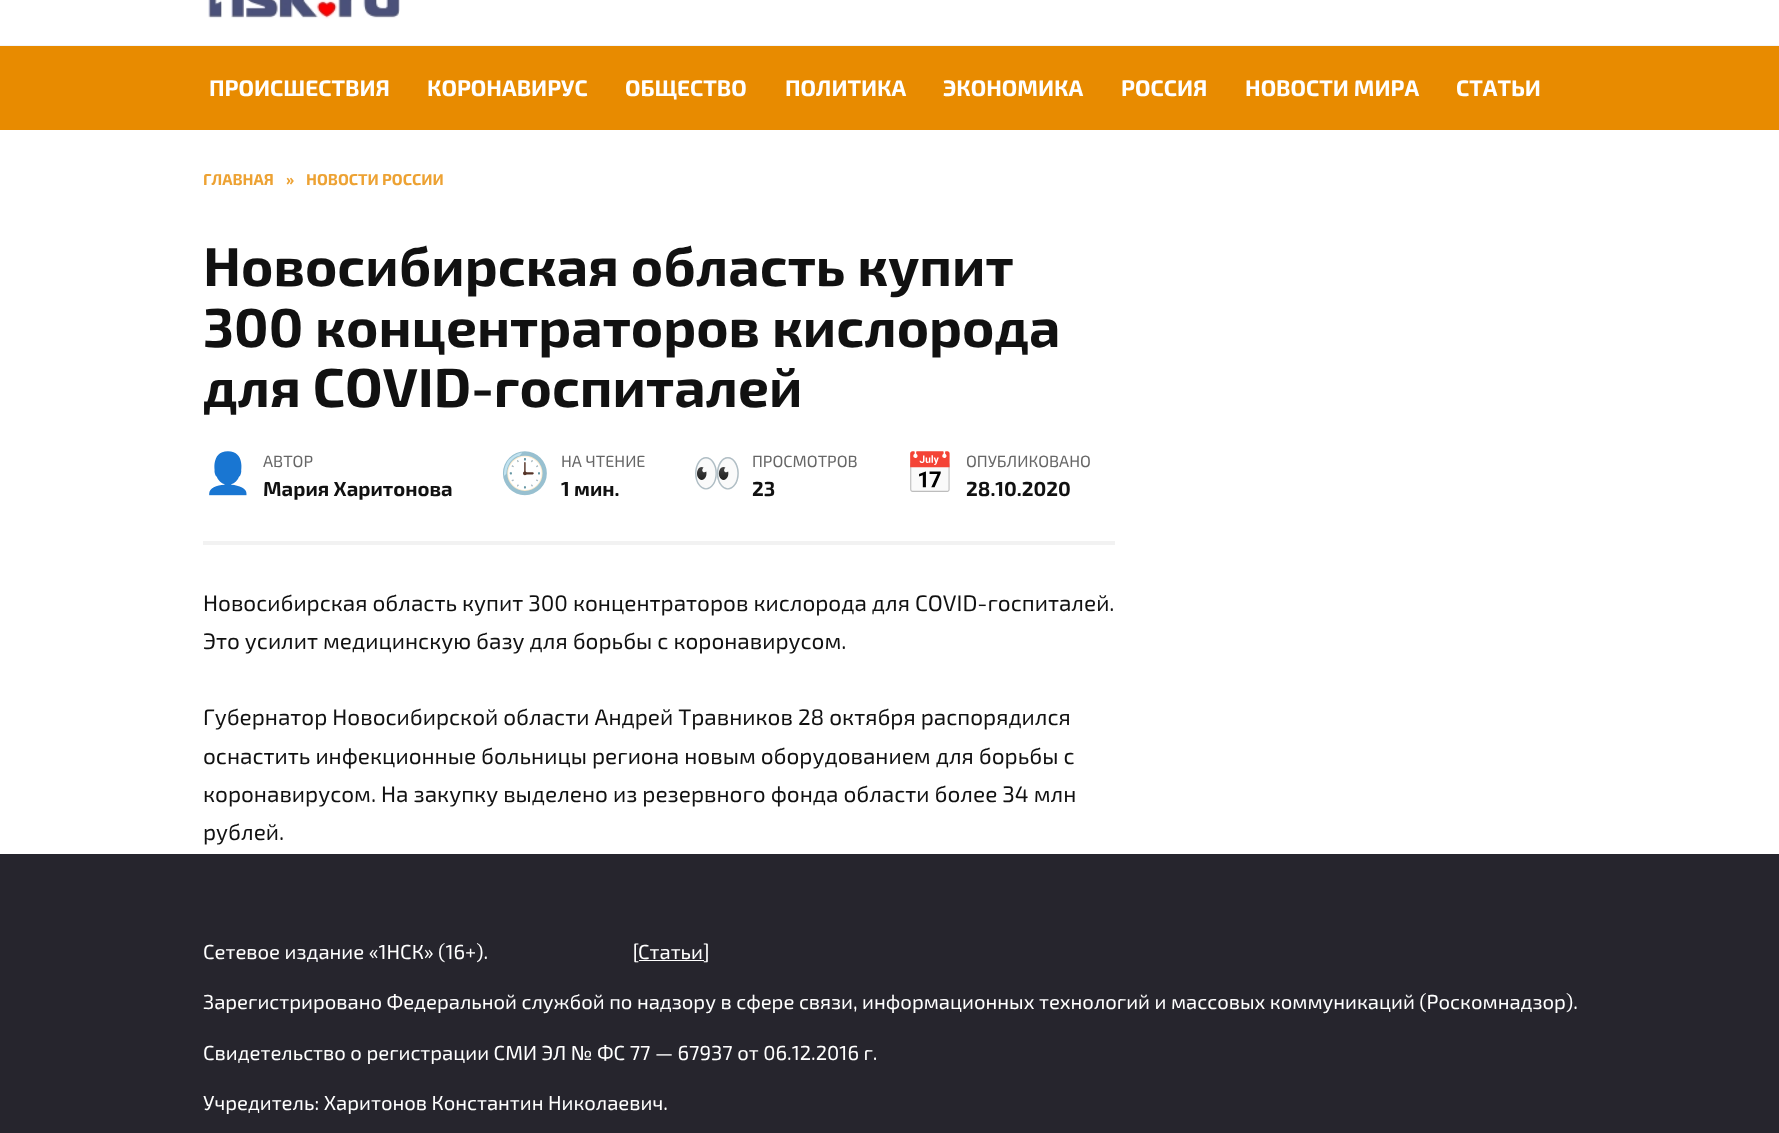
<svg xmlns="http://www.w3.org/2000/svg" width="1779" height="1133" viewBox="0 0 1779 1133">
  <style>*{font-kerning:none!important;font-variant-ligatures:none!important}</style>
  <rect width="100%" height="100%" fill="#ffffff"/>
  <rect x="0" y="45" width="1779" height="1" fill="#f2f5f9"/>
  <image x="208" y="0" width="192" height="19" href="img1.png"/>
  <rect x="0" y="46" width="1779" height="84" fill="#e88b00"/>
  <text x="209" y="96" font-family="'Exo 2'" font-size="22.5" font-weight="bold" fill="#ffffff">ПРОИСШЕСТВИЯ</text>
  <text x="427" y="96" font-family="'Exo 2'" font-size="22.5" font-weight="bold" fill="#ffffff">КОРОНАВИРУС</text>
  <text x="625" y="96" font-family="'Exo 2'" font-size="22.5" font-weight="bold" fill="#ffffff">ОБЩЕСТВО</text>
  <text x="785" y="96" font-family="'Exo 2'" font-size="22.5" font-weight="bold" fill="#ffffff">ПОЛИТИКА</text>
  <text x="943" y="96" font-family="'Exo 2'" font-size="22.5" font-weight="bold" fill="#ffffff">ЭКОНОМИКА</text>
  <text x="1121" y="96" font-family="'Exo 2'" font-size="22.5" font-weight="bold" fill="#ffffff">РОССИЯ</text>
  <text x="1245" y="96" font-family="'Exo 2'" font-size="22.5" font-weight="bold" fill="#ffffff">НОВОСТИ МИРА</text>
  <text x="1456" y="96" font-family="'Exo 2'" font-size="22.5" font-weight="bold" fill="#ffffff">СТАТЬИ</text>
  <text x="203" y="185" font-family="'Exo 2'" font-size="15.75" font-weight="bold" fill="#eda233">ГЛАВНАЯ</text>
  <text x="286" y="185" font-family="'Exo 2'" font-size="15.75" font-weight="bold" fill="#eda233">»</text>
  <text x="306" y="185" font-family="'Exo 2'" font-size="15.75" font-weight="bold" fill="#eda233">НОВОСТИ РОССИИ</text>
  <text x="203" y="286" font-family="'Exo 2'" font-size="54.8" font-weight="bold" fill="#111111">Новосибирская область купит</text>
  <text x="203" y="347" font-family="'Exo 2'" font-size="54.8" font-weight="bold" fill="#111111">300 концентраторов кислорода</text>
  <text x="203" y="407" font-family="'Exo 2'" font-size="54.8" font-weight="bold" fill="#111111">для COVID-госпиталей</text>
  <rect x="203" y="541" width="912" height="4" fill="#f2f2f2"/>
  <text x="203" y="487" font-family="Noto Color Emoji" font-size="40" fill="#e88b00">👤</text>
  <text x="263" y="467" font-family="'Exo 2'" font-size="16.25" fill="#666666">АВТОР</text>
  <text x="263" y="496" font-family="'Exo 2'" font-size="20.25" font-weight="bold" fill="#111111">Мария Харитонова</text>
  <text x="500" y="487" font-family="Noto Color Emoji" font-size="40" fill="#e88b00">🕒</text>
  <text x="561" y="467" font-family="'Exo 2'" font-size="16.25" fill="#666666">НА ЧТЕНИЕ</text>
  <text x="561" y="496" font-family="'Exo 2'" font-size="20.25" font-weight="bold" fill="#111111">1 мин.</text>
  <text x="692" y="487" font-family="Noto Color Emoji" font-size="40" fill="#e88b00">👀</text>
  <text x="752" y="467" font-family="'Exo 2'" font-size="16.25" fill="#666666">ПРОСМОТРОВ</text>
  <text x="752" y="496" font-family="'Exo 2'" font-size="20.25" font-weight="bold" fill="#111111">23</text>
  <text x="905" y="487" font-family="Noto Color Emoji" font-size="40" fill="#e88b00">📅</text>
  <text x="966" y="467" font-family="'Exo 2'" font-size="16.25" fill="#666666">ОПУБЛИКОВАНО</text>
  <text x="966" y="496" font-family="'Exo 2'" font-size="20.25" font-weight="bold" fill="#111111">28.10.2020</text>
  <text x="203" y="611" font-family="'Exo 2'" font-size="22.5" fill="#111111">Новосибирская область купит 300 концентраторов кислорода для COVID-госпиталей.</text>
  <text x="203" y="649" font-family="'Exo 2'" font-size="22.5" fill="#111111">Это усилит медицинскую базу для борьбы с коронавирусом.</text>
  <text x="203" y="725" font-family="'Exo 2'" font-size="22.5" fill="#111111">Губернатор Новосибирской области Андрей Травников 28 октября распорядился</text>
  <text x="203" y="764" font-family="'Exo 2'" font-size="22.5" fill="#111111">оснастить инфекционные больницы региона новым оборудованием для борьбы с</text>
  <text x="203" y="802" font-family="'Exo 2'" font-size="22.5" fill="#111111">коронавирусом. На закупку выделено из резервного фонда области более 34 млн</text>
  <text x="203" y="840" font-family="'Exo 2'" font-size="22.5" fill="#111111">рублей.</text>
  <rect x="0" y="854" width="1779" height="279" fill="#26252d"/>
  <text x="203" y="959" font-family="'Exo 2'" font-size="20.25" fill="#ffffff" xml:space="preserve">Сетевое издание «1НСК» (16+).                                [</text>
  <rect x="639" y="960" width="65" height="1" fill="#ffffff"/>
  <text x="638" y="959" font-family="'Exo 2'" font-size="20.25" fill="#ffffff">Статьи]</text>
  <text x="203" y="1009" font-family="'Exo 2'" font-size="20.25" fill="#ffffff">Зарегистрировано Федеральной службой по надзору в сфере связи, информационных технологий и массовых коммуникаций (Роскомнадзор).</text>
  <text x="203" y="1060" font-family="'Exo 2'" font-size="20.25" fill="#ffffff">Свидетельство о регистрации СМИ ЭЛ № ФС 77 — 67937 от 06.12.2016 г.</text>
  <text x="203" y="1110" font-family="'Exo 2'" font-size="20.25" fill="#ffffff">Учредитель: Харитонов Константин Николаевич.</text>
</svg>
